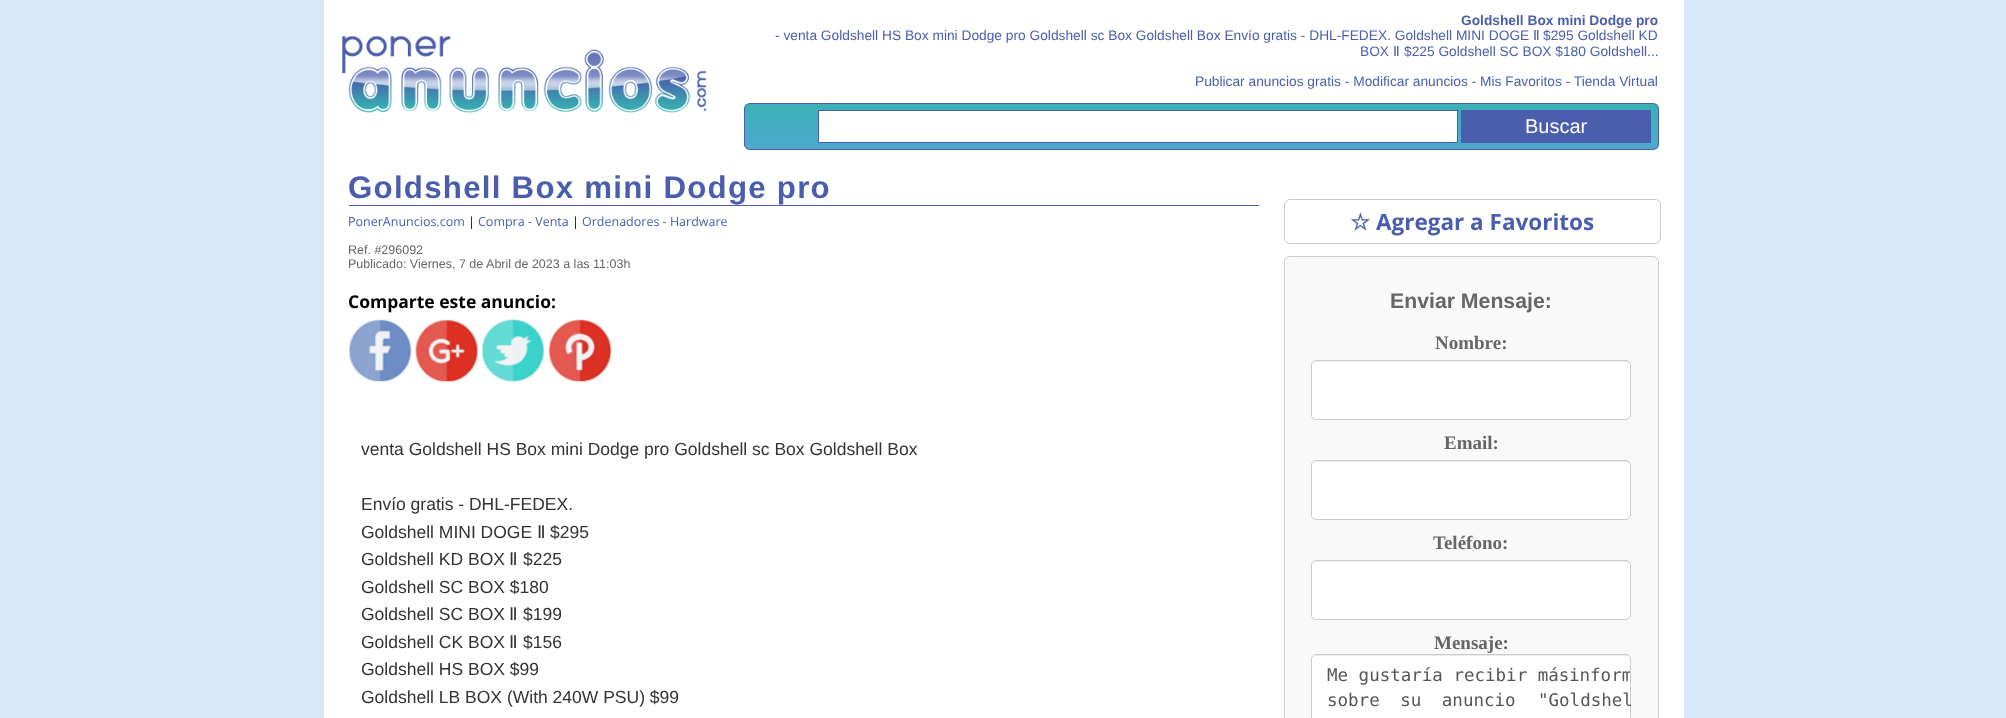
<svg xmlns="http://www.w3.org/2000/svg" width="2006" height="718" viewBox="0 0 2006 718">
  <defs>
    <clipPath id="clip1"><rect x="744" y="103" width="915" height="47" rx="6"/></clipPath>
    <linearGradient id="g1" gradientUnits="userSpaceOnUse" x1="1201" y1="104" x2="1201" y2="149"><stop offset="0" stop-color="#39b2b5"/><stop offset="1" stop-color="#50a8d1"/></linearGradient>
    <clipPath id="clip2"><rect x="1313" y="655" width="317" height="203" rx="4"/></clipPath>
  </defs>
  <rect width="100%" height="100%" fill="#d5e7f8"/>
  <rect x="324" y="0" width="1360" height="718" fill="#ffffff"/>
  <image x="342" y="35" width="365" height="78" href="img1.png"/>
  <text x="1461" y="25" font-family="Liberation Sans" font-size="13.75" font-weight="bold" fill="#4b5ead">Goldshell Box mini Dodge pro</text>
  <text x="775" y="40" font-family="Liberation Sans" font-size="13.75" fill="#4b5ead">- venta Goldshell HS Box mini Dodge pro Goldshell sc Box Goldshell Box Envío gratis - DHL-FEDEX. Goldshell MINI DOGE</text>
  <text x="1533" y="40" font-family="DejaVu Sans" font-size="13.75" fill="#4b5ead">Ⅱ</text>
  <text x="1543" y="40" font-family="Liberation Sans" font-size="13.75" fill="#4b5ead">$295 Goldshell KD</text>
  <text x="1360" y="56" font-family="Liberation Sans" font-size="13.75" fill="#4b5ead">BOX</text>
  <text x="1393" y="56" font-family="DejaVu Sans" font-size="13.75" fill="#4b5ead">Ⅱ</text>
  <text x="1404" y="56" font-family="Liberation Sans" font-size="13.75" fill="#4b5ead">$225 Goldshell SC BOX $180 Goldshell...</text>
  <text x="1195" y="86" font-family="Liberation Sans" font-size="13.75" fill="#4b5ead">Publicar anuncios gratis - Modificar anuncios - Mis Favoritos - Tienda Virtual</text>
  <g clip-path="url(#clip1)">
    <rect x="744" y="104" width="915" height="45" fill="url(#g1)"/>
  </g>
  <rect x="744.5" y="103.5" width="914" height="46" rx="5.5" fill="none" stroke="#4b5ead"/>
  <rect x="818.5" y="110.5" width="639" height="32" fill="#ffffff" stroke="#4b5ead"/>
  <rect x="1461" y="110" width="190" height="33" fill="#4b5ead"/>
  <text x="1525" y="133" font-family="Liberation Sans" font-size="20" fill="#ffffff">Buscar</text>
  <rect x="349" y="205" width="910" height="1" fill="#4b5ead"/>
  <text x="348" y="198" font-family="Liberation Sans" font-size="31.25" font-weight="bold" letter-spacing="1.25" fill="#4b5ead">Goldshell Box mini Dodge pro</text>
  <text x="348" y="226" font-family="Open Sans" font-size="12.5" fill="#4b5ead">PonerAnuncios.com</text>
  <text x="468" y="226" font-family="Open Sans" font-size="12.5" fill="#000000">|</text>
  <text x="478" y="226" font-family="Open Sans" font-size="12.5" fill="#4b5ead">Compra - Venta</text>
  <text x="572" y="226" font-family="Open Sans" font-size="12.5" fill="#000000">|</text>
  <text x="582" y="226" font-family="Open Sans" font-size="12.5" fill="#4b5ead">Ordenadores - Hardware</text>
  <text x="348" y="254" font-family="Liberation Sans" font-size="12.5" fill="#666666">Ref. #296092</text>
  <text x="348" y="268" font-family="Liberation Sans" font-size="12.5" fill="#666666">Publicado: Viernes, 7 de Abril de 2023 a las 11:03h</text>
  <text x="348" y="308" font-family="Open Sans" font-size="17.5" font-weight="bold" fill="#000000">Comparte este anuncio:</text>
  <image x="349" y="319" width="63" height="63" href="img2.png"/>
  <image x="415" y="319" width="63" height="63" href="img3.png"/>
  <image x="482" y="318" width="63" height="64" href="img4.png"/>
  <image x="548" y="318" width="64" height="64" href="img5.png"/>
  <text x="361" y="455" font-family="Liberation Sans" font-size="17.5" fill="#333333">venta Goldshell HS Box mini Dodge pro Goldshell sc Box Goldshell Box</text>
  <text x="361" y="510" font-family="Liberation Sans" font-size="17.5" fill="#333333">Envío gratis - DHL-FEDEX.</text>
  <text x="361" y="538" font-family="Liberation Sans" font-size="17.5" fill="#333333">Goldshell MINI DOGE</text>
  <text x="537" y="538" font-family="DejaVu Sans" font-size="17.5" fill="#333333">Ⅱ</text>
  <text x="550" y="538" font-family="Liberation Sans" font-size="17.5" fill="#333333">$295</text>
  <text x="361" y="565" font-family="Liberation Sans" font-size="17.5" fill="#333333">Goldshell KD BOX</text>
  <text x="509" y="565" font-family="DejaVu Sans" font-size="17.5" fill="#333333">Ⅱ</text>
  <text x="523" y="565" font-family="Liberation Sans" font-size="17.5" fill="#333333">$225</text>
  <text x="361" y="593" font-family="Liberation Sans" font-size="17.5" fill="#333333">Goldshell SC BOX $180</text>
  <text x="361" y="620" font-family="Liberation Sans" font-size="17.5" fill="#333333">Goldshell SC BOX</text>
  <text x="509" y="620" font-family="DejaVu Sans" font-size="17.5" fill="#333333">Ⅱ</text>
  <text x="523" y="620" font-family="Liberation Sans" font-size="17.5" fill="#333333">$199</text>
  <text x="361" y="648" font-family="Liberation Sans" font-size="17.5" fill="#333333">Goldshell CK BOX</text>
  <text x="509" y="648" font-family="DejaVu Sans" font-size="17.5" fill="#333333">Ⅱ</text>
  <text x="523" y="648" font-family="Liberation Sans" font-size="17.5" fill="#333333">$156</text>
  <text x="361" y="675" font-family="Liberation Sans" font-size="17.5" fill="#333333">Goldshell HS BOX $99</text>
  <text x="361" y="703" font-family="Liberation Sans" font-size="17.5" fill="#333333">Goldshell LB BOX (With 240W PSU) $99</text>
  <rect x="1284.5" y="199.5" width="376" height="44" rx="5.5" fill="none" stroke="#cccccc"/>
  <text x="1350" y="230" font-family="DejaVu Sans" font-size="22.5" font-weight="bold" fill="#4b5ead">☆</text>
  <text x="1376" y="230" font-family="Open Sans" font-size="22.5" font-weight="bold" fill="#4b5ead">Agregar a Favoritos</text>
  <rect x="1284.5" y="256.5" width="374" height="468" rx="5.5" fill="#f9f9f9" stroke="#cccccc"/>
  <text x="1390" y="308" font-family="Liberation Sans" font-size="21.25" font-weight="bold" fill="#666666">Enviar Mensaje:</text>
  <text x="1435" y="349" font-family="Liberation Serif" font-size="19" font-weight="bold" fill="#666666">Nombre:</text>
  <rect x="1311" y="360" width="320" height="60" rx="5" fill="#ffffff"/>
  <path d="M1316 362H1626C1628 362 1630 364 1630 366V365C1630 363 1628 361 1626 361H1317C1316 361 1314 362 1314 363Z" fill="#ececec"/>
  <rect x="1311.5" y="360.5" width="319" height="59" rx="4.5" fill="none" stroke="#cccccc"/>
  <text x="1444" y="449" font-family="Liberation Serif" font-size="19" font-weight="bold" fill="#666666">Email:</text>
  <rect x="1311" y="460" width="320" height="60" rx="5" fill="#ffffff"/>
  <path d="M1316 462H1626C1628 462 1630 464 1630 466V465C1630 463 1628 461 1626 461H1317C1316 461 1314 462 1314 463Z" fill="#ececec"/>
  <rect x="1311.5" y="460.5" width="319" height="59" rx="4.5" fill="none" stroke="#cccccc"/>
  <text x="1433" y="549" font-family="Liberation Serif" font-size="19" font-weight="bold" fill="#666666">Teléfono:</text>
  <rect x="1311" y="560" width="320" height="60" rx="5" fill="#ffffff"/>
  <path d="M1316 562H1626C1628 562 1630 564 1630 566V565C1630 563 1628 561 1626 561H1317C1316 561 1314 562 1314 563Z" fill="#ececec"/>
  <rect x="1311.5" y="560.5" width="319" height="59" rx="4.5" fill="none" stroke="#cccccc"/>
  <text x="1434" y="649" font-family="Liberation Serif" font-size="19" font-weight="bold" fill="#666666">Mensaje:</text>
  <rect x="1311" y="654" width="320" height="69" rx="5" fill="#ffffff"/>
  <path d="M1316 656H1626C1628 656 1630 658 1630 660V659C1630 657 1628 655 1626 655H1317C1316 655 1314 656 1314 657Z" fill="#ececec"/>
  <rect x="1311.5" y="654.5" width="319" height="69" rx="4.5" fill="none" stroke="#cccccc"/>
  <text x="1327" y="681" font-family="DejaVu Sans Mono" font-size="17.5" fill="#555555">Me gustaría recibir más</text>
  <g clip-path="url(#clip2)">
    <text x="1569" y="681" font-family="DejaVu Sans Mono" font-size="17.5" fill="#555555">inform</text>
  </g>
  <text x="1327" y="706" word-spacing="10" font-family="DejaVu Sans Mono" font-size="17.5" fill="#555555">sobre su anuncio</text>
  <text x="1538" y="706" font-family="DejaVu Sans Mono" font-size="17.5" fill="#555555">"Goldshel</text>
</svg>
